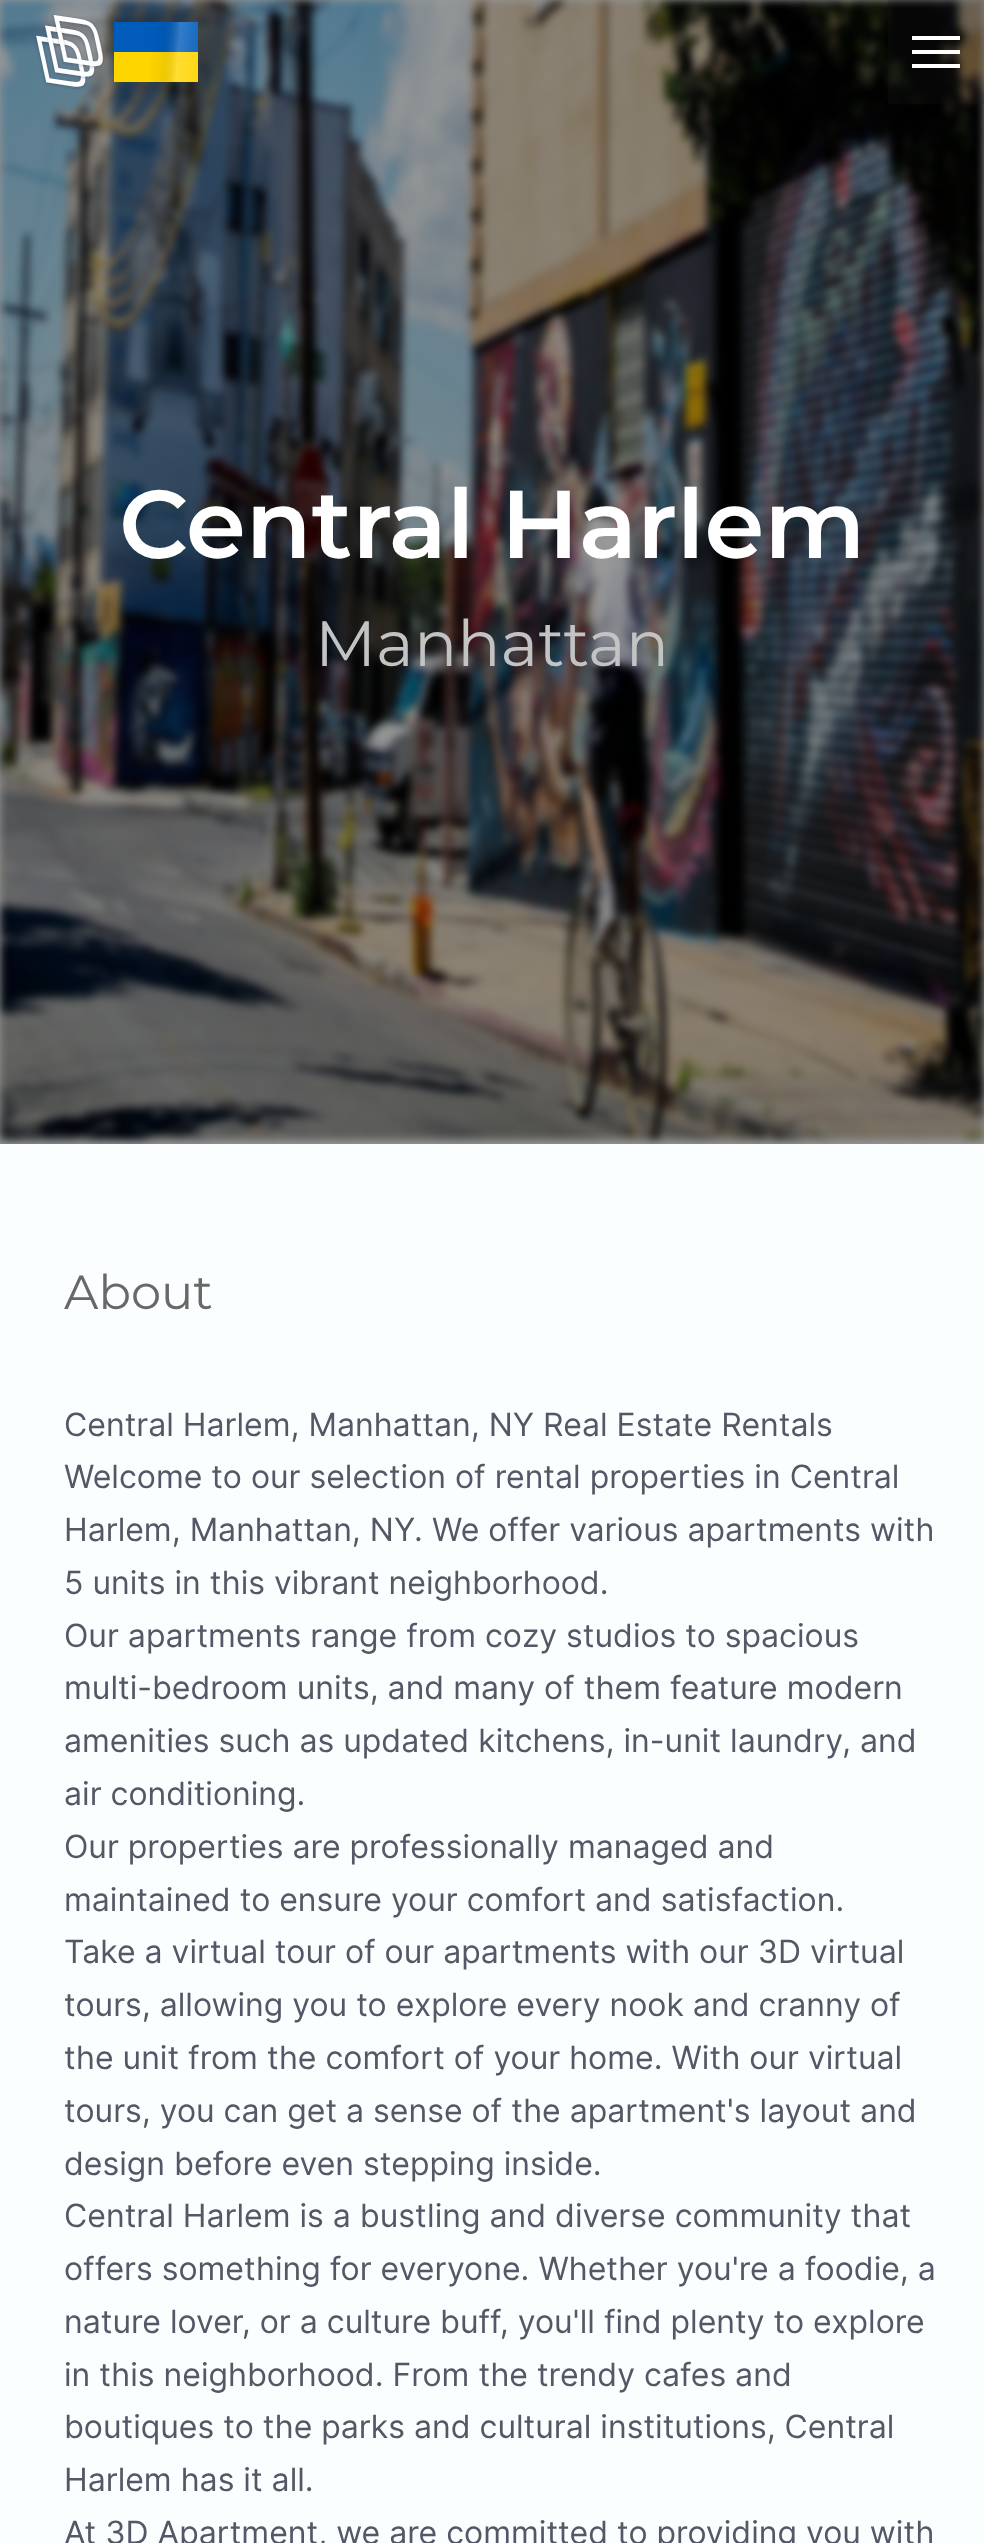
<svg xmlns="http://www.w3.org/2000/svg" width="984" height="2543" viewBox="0 0 984 2543">
  <defs>
    <filter id="blur1" x="-50%" y="-200%" width="200%" height="500%"><feGaussianBlur stdDeviation="14"/></filter>
    <linearGradient id="g1" gradientUnits="userSpaceOnUse" x1="115" y1="7" x2="282" y2="22"><stop offset="0" stop-color="#ffffff" stop-opacity="0"/><stop offset="0.2" stop-color="#000000" stop-opacity="0"/><stop offset="0.3" stop-color="#000000" stop-opacity="0.04"/><stop offset="0.4" stop-color="#ffffff" stop-opacity="0.2"/><stop offset="0.6" stop-color="#ffffff" stop-opacity="0"/><stop offset="0.65" stop-color="#ffffff" stop-opacity="0.2"/><stop offset="0.8" stop-color="#000000" stop-opacity="0.05"/><stop offset="1" stop-color="#000000" stop-opacity="0"/></linearGradient>
  </defs>
  <rect width="100%" height="100%" fill="#fbfefe"/>
  <rect x="0" y="0" width="984" height="1144" fill="#979898"/>
  <image x="0" y="0" width="984" height="1144" href="img2.png"/>
  <image x="35" y="14" width="70" height="76" href="img1.png"/>
  <rect x="118" y="32" width="84" height="60" fill="#000000" fill-opacity="0.2" filter="url(#blur1)"/>
  <rect x="114" y="52" width="84" height="30" fill="#ffd500"/>
  <rect x="114" y="22" width="84" height="30" fill="#005bbb"/>
  <rect x="151" y="22" width="47" height="60" fill="url(#g1)"/>
  <rect x="888" y="0" width="96" height="104" fill="#1d1d1d" fill-opacity="0.2"/>
  <rect x="912" y="36" width="48" height="4" fill="#ffffff"/>
  <rect x="912" y="50" width="48" height="4" fill="#ffffff"/>
  <rect x="912" y="64" width="48" height="4" fill="#ffffff"/>
  <text x="119" y="558" font-family="Montserrat" font-size="96" font-weight="600" fill="#ffffff">Central Harlem</text>
  <text x="315" y="666" font-family="Montserrat" font-size="64" fill="#c3c3c3">Manhattan</text>
  <text x="64" y="1309" font-family="Montserrat" font-size="48" fill="#686868">About</text>
  <text x="64" y="1436" font-family="Inter" font-size="32" fill="#525865">Central Harlem, Manhattan, NY Real Estate Rentals</text>
  <text x="64" y="1488" font-family="Inter" font-size="32" fill="#525865">Welcome to our selection of rental properties in Central</text>
  <text x="64" y="1541" font-family="Inter" font-size="32" fill="#525865">Harlem, Manhattan, NY. We offer various apartments with</text>
  <text x="64" y="1594" font-family="Inter" font-size="32" fill="#525865">5 units in this vibrant neighborhood.</text>
  <text x="64" y="1647" font-family="Inter" font-size="32" fill="#525865">Our apartments range from cozy studios to spacious</text>
  <text x="64" y="1699" font-family="Inter" font-size="32" fill="#525865">multi-bedroom units, and many of them feature modern</text>
  <text x="64" y="1752" font-family="Inter" font-size="32" fill="#525865">amenities such as updated kitchens, in-unit laundry, and</text>
  <text x="64" y="1805" font-family="Inter" font-size="32" fill="#525865">air conditioning.</text>
  <text x="64" y="1858" font-family="Inter" font-size="32" fill="#525865">Our properties are professionally managed and</text>
  <text x="64" y="1911" font-family="Inter" font-size="32" fill="#525865">maintained to ensure your comfort and satisfaction.</text>
  <text x="64" y="1963" font-family="Inter" font-size="32" fill="#525865">Take a virtual tour of our apartments with our 3D virtual</text>
  <text x="64" y="2016" font-family="Inter" font-size="32" fill="#525865">tours, allowing you to explore every nook and cranny of</text>
  <text x="64" y="2069" font-family="Inter" font-size="32" fill="#525865">the unit from the comfort of your home. With our virtual</text>
  <text x="64" y="2122" font-family="Inter" font-size="32" fill="#525865">tours, you can get a sense of the apartment's layout and</text>
  <text x="64" y="2175" font-family="Inter" font-size="32" fill="#525865">design before even stepping inside.</text>
  <text x="64" y="2227" font-family="Inter" font-size="32" fill="#525865">Central Harlem is a bustling and diverse community that</text>
  <text x="64" y="2280" font-family="Inter" font-size="32" fill="#525865">offers something for everyone. Whether you're a foodie, a</text>
  <text x="64" y="2333" font-family="Inter" font-size="32" fill="#525865">nature lover, or a culture buff, you'll find plenty to explore</text>
  <text x="64" y="2386" font-family="Inter" font-size="32" fill="#525865">in this neighborhood. From the trendy cafes and</text>
  <text x="64" y="2438" font-family="Inter" font-size="32" fill="#525865">boutiques to the parks and cultural institutions, Central</text>
  <text x="64" y="2491" font-family="Inter" font-size="32" fill="#525865">Harlem has it all.</text>
  <text x="64" y="2544" font-family="Inter" font-size="32" fill="#525865">At 3D Apartment, we are committed to providing you with</text>
</svg>
